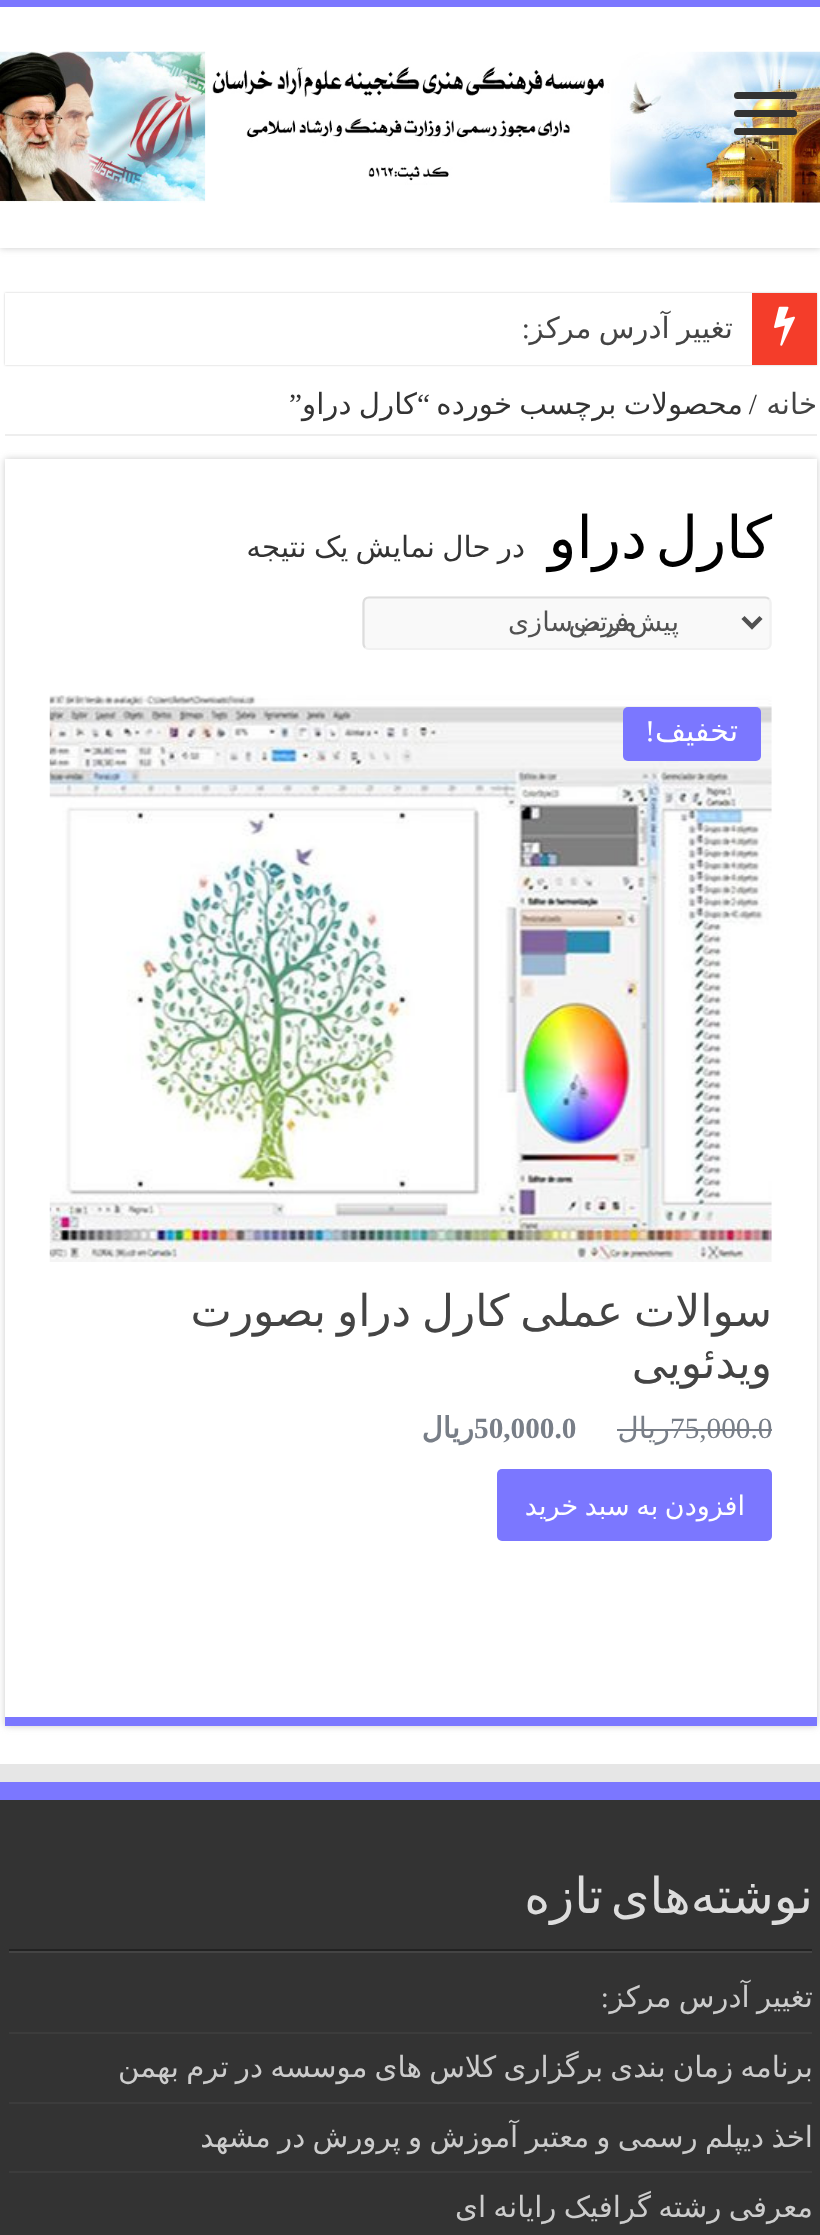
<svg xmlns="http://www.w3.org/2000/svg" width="820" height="2235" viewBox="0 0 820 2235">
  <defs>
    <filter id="blur1" x="-50%" y="-200%" width="200%" height="500%"><feGaussianBlur stdDeviation="3.5"/></filter>
    <filter id="blur2" x="-50%" y="-200%" width="200%" height="500%"><feGaussianBlur stdDeviation="1"/></filter>
    <clipPath id="clip1"><rect x="50" y="695" width="722" height="853"/></clipPath>
    <clipPath id="clip2"><rect x="9" y="1964" width="803" height="68"/></clipPath>
    <clipPath id="clip3"><rect x="9" y="2034" width="803" height="68"/></clipPath>
    <clipPath id="clip4"><rect x="9" y="2104" width="803" height="67"/></clipPath>
    <clipPath id="clip5"><rect x="9" y="2174" width="803" height="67"/></clipPath>
  </defs>
  <rect width="100%" height="100%" fill="#ffffff"/>
  <rect x="0" y="0" width="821" height="248" fill="#cacaca" filter="url(#blur1)"/>
  <rect x="0" y="7" width="820" height="241" fill="#ffffff"/>
  <rect x="0" y="0" width="820" height="7" fill="#7b77ff"/>
  <image x="0" y="51" width="820" height="152" href="img1.png"/>
  <rect x="734" y="92" width="63" height="7" rx="3.5" fill="#333333"/>
  <rect x="734" y="110" width="63" height="7" rx="3.5" fill="#333333"/>
  <rect x="734" y="128" width="63" height="7" rx="3.5" fill="#333333"/>
  <rect x="5" y="293" width="812" height="72" fill="#cacaca" filter="url(#blur2)"/>
  <rect x="5" y="293" width="747" height="72" fill="#ffffff"/>
  <rect x="752" y="293" width="65" height="72" fill="#f43d2a"/>
  <image x="774" y="306" width="21" height="40" href="img2.png"/>
  <text x="733" y="338" word-spacing="-2" font-family="DejaVu Sans" font-size="29.25" direction="rtl" fill="#444444">تغییر آدرس مرکز</text>
  <text x="530" y="338" font-family="Liberation Serif" font-size="29.25" direction="rtl" fill="#444444">:</text>
  <rect x="5" y="434" width="812" height="2" fill="#eeeeee"/>
  <text x="817" y="414" font-family="DejaVu Sans" font-size="29.25" direction="rtl" fill="#444444">خانه</text>
  <text x="757" y="414" font-family="Liberation Serif" font-size="29.25" direction="rtl" fill="#333333">/</text>
  <text x="743" y="414" word-spacing="-2" font-family="DejaVu Sans" font-size="29.25" direction="rtl" fill="#333333">محصولات برچسب خورده</text>
  <text x="302" y="414" font-family="Liberation Serif" font-size="29.25" direction="rtl" fill="#333333">”</text>
  <text x="417" y="414" word-spacing="-2" font-family="DejaVu Sans" font-size="29.25" direction="rtl" fill="#333333">کارل دراو</text>
  <text x="430" y="414" font-family="Liberation Serif" font-size="29.25" direction="rtl" fill="#333333">“</text>
  <rect x="5" y="459" width="812" height="1267" fill="#cacaca" filter="url(#blur1)"/>
  <rect x="5" y="459" width="812" height="1258" fill="#ffffff"/>
  <rect x="5" y="1717" width="812" height="9" fill="#7b77ff"/>
  <text x="772" y="558" word-spacing="-10" font-family="DejaVu Sans" font-size="58.5" direction="rtl" fill="#000000">کارل دراو</text>
  <text x="525" y="557" word-spacing="-2" font-family="DejaVu Sans" font-size="29.25" direction="rtl" fill="#333333">در حال نمایش یک نتیجه</text>
  <rect x="362" y="596" width="410" height="54" rx="7" fill="#f9f9f9"/>
  <path d="M769 599C770 600 770.5 601.5 770.5 603V643.5C770.5 645 770 646.5 769 647.5C768 648.5 766.5 649 765 649H369C367.5 649 366 648.5 365 647.5" fill="none" stroke="#f1f1f1" stroke-width="2.2"/>
  <path d="M365 647.5C364 646.5 363.5 645 363.5 643.5V603C363.5 601.5 364 600 365 599C366 598 367.5 597.5 369 597.5H765C766.5 597.5 768 598 769 599" fill="none" stroke="#dddddd" stroke-width="2.2"/>
  <path d="M743 617.5L752 626.5L761 617.5" fill="none" stroke="#515151" stroke-width="4.5"/>
  <text x="637" y="631" font-family="DejaVu Sans" font-size="27" direction="rtl" fill="#515151">مرتب</text>
  <text x="679" y="631" font-family="DejaVu Sans" font-size="27" direction="rtl" fill="#515151">پیش</text>
  <text x="573" y="631" font-family="DejaVu Sans" font-size="27" direction="rtl" fill="#515151">سازی</text>
  <text x="629" y="631" font-family="DejaVu Sans" font-size="27" direction="rtl" fill="#515151">فرض</text>
  <image x="49" y="695" width="723" height="567" href="img3.png"/>
  <rect x="623" y="707" width="138" height="54" rx="5" fill="#7b77ff"/>
  <text x="738" y="741" font-family="DejaVu Sans" font-size="30" direction="rtl" fill="#ffffff">تخفیف</text>
  <text x="655" y="741" font-family="Liberation Serif" font-size="30" direction="rtl" fill="#ffffff">!</text>
  <g clip-path="url(#clip1)">
    <text x="772" y="1326" word-spacing="-3" font-family="DejaVu Sans" font-size="43.9" direction="rtl" fill="#444444">سوالات عملی کارل دراو بصورت</text>
  </g>
  <text x="772" y="1378" font-family="DejaVu Sans" font-size="43.9" direction="rtl" fill="#444444">ویدئویی</text>
  <text x="670" y="1438" font-family="Liberation Serif" font-size="29.25" fill="#787e87">75,000.0</text>
  <rect x="671" y="1429" width="101" height="2" fill="#787e87"/>
  <rect x="617" y="1429" width="54" height="2" fill="#787e87"/>
  <text x="670" y="1438" font-family="DejaVu Sans" font-size="29.25" direction="rtl" fill="#787e87">ریال</text>
  <text x="474" y="1438" font-family="Liberation Serif" font-size="29.25" font-weight="bold" fill="#787e87">50,000.0</text>
  <text x="474" y="1438" font-family="DejaVu Sans" font-size="29.25" font-weight="bold" direction="rtl" fill="#787e87">ریال</text>
  <rect x="497" y="1469" width="275" height="72" rx="5" fill="#7b77ff"/>
  <text x="745" y="1515" word-spacing="-2" font-family="DejaVu Sans" font-size="27" direction="rtl" fill="#ffffff">افزودن به سبد خرید</text>
  <rect x="0" y="1764" width="820" height="18" fill="#e6e6e6"/>
  <rect x="0" y="1800" width="820" height="435" fill="#333333"/>
  <rect x="0" y="1782" width="820" height="18" fill="#7b77ff"/>
  <rect x="9" y="1949" width="803" height="2" fill="#222222"/>
  <text x="813" y="1913" word-spacing="-8" font-family="DejaVu Sans" font-size="49.5" direction="rtl" fill="#dddddd">نوشته‌های تازه</text>
  <rect x="9" y="1951" width="803" height="2" fill="#444444"/>
  <rect x="9" y="2032" width="803" height="2" fill="#3c3c3c"/>
  <g clip-path="url(#clip2)">
    <text x="813" y="2007" word-spacing="-2" font-family="DejaVu Sans" font-size="29.25" direction="rtl" fill="#cccccc">تغییر آدرس مرکز</text>
  </g>
  <text x="609" y="2007" font-family="Liberation Serif" font-size="29.25" direction="rtl" fill="#cccccc">:</text>
  <rect x="9" y="2102" width="803" height="2" fill="#3c3c3c"/>
  <g clip-path="url(#clip3)">
    <text x="813" y="2077" word-spacing="-2" font-family="DejaVu Sans" font-size="29.25" direction="rtl" fill="#cccccc">برنامه زمان بندی برگزاری کلاس های موسسه در ترم بهمن</text>
  </g>
  <rect x="9" y="2171" width="803" height="2" fill="#3c3c3c"/>
  <g clip-path="url(#clip4)">
    <text x="813" y="2147" word-spacing="-2" font-family="DejaVu Sans" font-size="29.25" direction="rtl" fill="#cccccc">اخذ دیپلم رسمی و معتبر آموزش و پرورش در مشهد</text>
  </g>
  <g clip-path="url(#clip5)">
    <text x="813" y="2217" word-spacing="-2" font-family="DejaVu Sans" font-size="29.25" direction="rtl" fill="#cccccc">معرفی رشته گرافیک رایانه ای</text>
  </g>
</svg>
